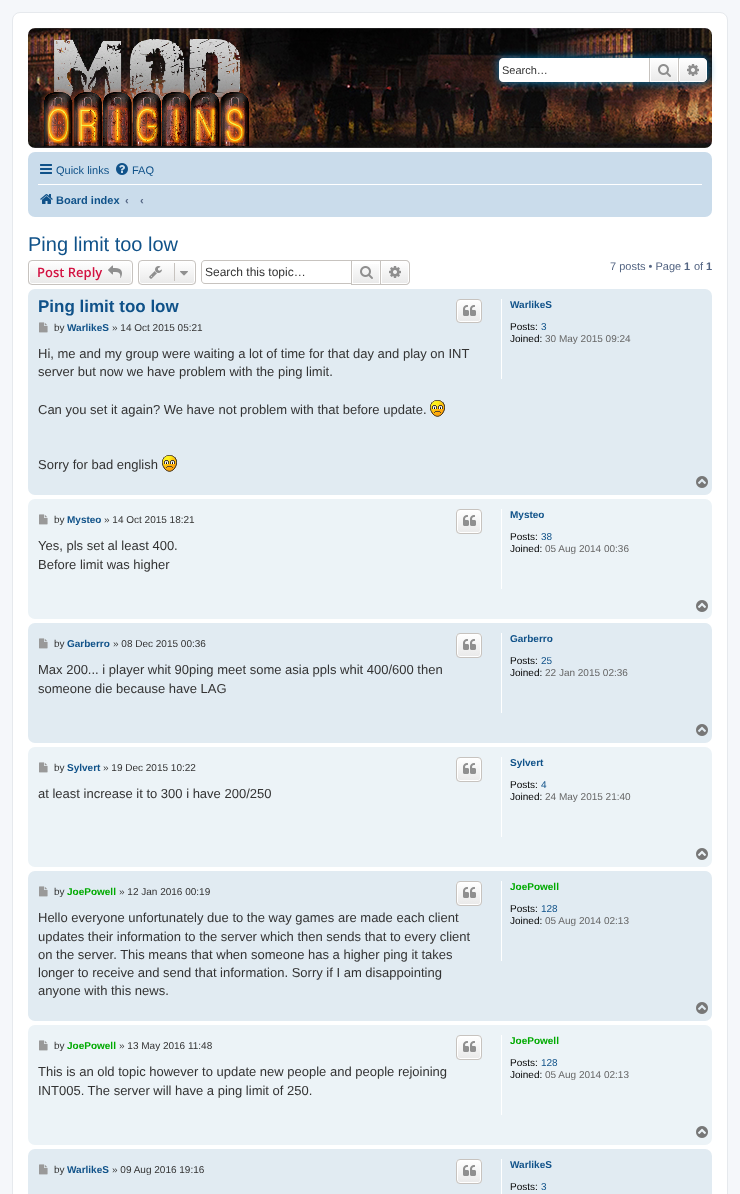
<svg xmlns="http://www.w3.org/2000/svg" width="740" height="1194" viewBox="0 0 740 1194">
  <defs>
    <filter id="blur1" x="-50%" y="-200%" width="200%" height="500%"><feGaussianBlur stdDeviation="5"/></filter>
    <linearGradient id="g1" gradientUnits="userSpaceOnUse" x1="664" y1="58" x2="664" y2="82"><stop offset="0" stop-color="#ffffff"/><stop offset="1" stop-color="#e9e9e9"/></linearGradient>
    <linearGradient id="g2" gradientUnits="userSpaceOnUse" x1="693" y1="58" x2="693" y2="82"><stop offset="0" stop-color="#ffffff"/><stop offset="1" stop-color="#e9e9e9"/></linearGradient>
    <clipPath id="clip1"><rect x="28" y="260" width="105" height="25" rx="4"/></clipPath>
    <linearGradient id="g3" gradientUnits="userSpaceOnUse" x1="81" y1="261" x2="81" y2="284"><stop offset="0" stop-color="#ffffff"/><stop offset="1" stop-color="#e9e9e9"/></linearGradient>
    <clipPath id="clip2"><rect x="138" y="260" width="58" height="25" rx="4"/></clipPath>
    <linearGradient id="g4" gradientUnits="userSpaceOnUse" x1="167" y1="261" x2="167" y2="284"><stop offset="0" stop-color="#ffffff"/><stop offset="1" stop-color="#e9e9e9"/></linearGradient>
    <linearGradient id="g5" gradientUnits="userSpaceOnUse" x1="366" y1="261" x2="366" y2="284"><stop offset="0" stop-color="#ffffff"/><stop offset="1" stop-color="#e9e9e9"/></linearGradient>
    <linearGradient id="g6" gradientUnits="userSpaceOnUse" x1="395" y1="261" x2="395" y2="284"><stop offset="0" stop-color="#ffffff"/><stop offset="1" stop-color="#e9e9e9"/></linearGradient>
    <clipPath id="clip3"><rect x="456" y="299" width="26" height="24" rx="4"/></clipPath>
    <linearGradient id="g7" gradientUnits="userSpaceOnUse" x1="469" y1="300" x2="469" y2="322"><stop offset="0" stop-color="#ffffff"/><stop offset="1" stop-color="#e9e9e9"/></linearGradient>
    <clipPath id="clip4"><rect x="456" y="509" width="26" height="25" rx="4"/></clipPath>
    <linearGradient id="g8" gradientUnits="userSpaceOnUse" x1="469" y1="510" x2="469" y2="533"><stop offset="0" stop-color="#ffffff"/><stop offset="1" stop-color="#e9e9e9"/></linearGradient>
    <clipPath id="clip5"><rect x="456" y="633" width="26" height="25" rx="4"/></clipPath>
    <linearGradient id="g9" gradientUnits="userSpaceOnUse" x1="469" y1="634" x2="469" y2="657"><stop offset="0" stop-color="#ffffff"/><stop offset="1" stop-color="#e9e9e9"/></linearGradient>
    <clipPath id="clip6"><rect x="456" y="757" width="26" height="25" rx="4"/></clipPath>
    <linearGradient id="g10" gradientUnits="userSpaceOnUse" x1="469" y1="758" x2="469" y2="781"><stop offset="0" stop-color="#ffffff"/><stop offset="1" stop-color="#e9e9e9"/></linearGradient>
    <clipPath id="clip7"><rect x="456" y="881" width="26" height="25" rx="4"/></clipPath>
    <linearGradient id="g11" gradientUnits="userSpaceOnUse" x1="469" y1="882" x2="469" y2="905"><stop offset="0" stop-color="#ffffff"/><stop offset="1" stop-color="#e9e9e9"/></linearGradient>
    <clipPath id="clip8"><rect x="456" y="1035" width="26" height="25" rx="4"/></clipPath>
    <linearGradient id="g12" gradientUnits="userSpaceOnUse" x1="469" y1="1036" x2="469" y2="1059"><stop offset="0" stop-color="#ffffff"/><stop offset="1" stop-color="#e9e9e9"/></linearGradient>
    <clipPath id="clip9"><rect x="456" y="1159" width="26" height="25" rx="4"/></clipPath>
    <linearGradient id="g13" gradientUnits="userSpaceOnUse" x1="469" y1="1160" x2="469" y2="1183"><stop offset="0" stop-color="#ffffff"/><stop offset="1" stop-color="#e9e9e9"/></linearGradient>
  </defs>
  <rect width="100%" height="100%" fill="#f5f7fa"/>
  <rect x="12.5" y="12.5" width="715" height="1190" rx="7.5" fill="#ffffff" stroke="#e6e9ed"/>
  <image x="28" y="28" width="684" height="120" href="img1.png"/>
  <image x="40" y="39" width="213" height="107" href="img2.png"/>
  <rect x="499" y="58" width="208" height="24" rx="4" fill="#0075b0" filter="url(#blur1)"/>
  <path d="M503 58H649V82H503C501 82 499 80 499 78V62C499 60 501 58 503 58Z" fill="#ffffff"/>
  <text x="502" y="74" font-family="Liberation Sans" font-size="11" fill="#333333">Search…</text>
  <rect x="651" y="59" width="26" height="22" fill="url(#g1)"/>
  <rect x="650.5" y="58.5" width="27" height="23" fill="none" stroke="#ffffff"/>
  <rect x="678" y="58" width="1" height="24" fill="#c7c3bf"/>
  <rect x="649" y="58" width="1" height="24" fill="#c7c3bf"/>
  <image x="658" y="64" width="13" height="13" href="img3.png"/>
  <path d="M679.5 58.5H703C705 58.5 706.5 60 706.5 62V78C706.5 80 705 81.5 703 81.5H679.5Z" fill="url(#g2)" stroke="#ffffff"/>
  <image x="687" y="64" width="12" height="12" href="img4.png"/>
  <rect x="28" y="152" width="684" height="65" rx="7" fill="#cadceb"/>
  <image x="40" y="164" width="12" height="10" href="img5.png"/>
  <text x="56" y="174" font-family="Liberation Sans" font-size="11" fill="#105289">Quick links</text>
  <image x="116" y="163" width="12" height="12" href="img6.png"/>
  <text x="132" y="174" font-family="Liberation Sans" font-size="11" fill="#105289">FAQ</text>
  <rect x="38" y="184" width="664" height="1" fill="#ffffff"/>
  <image x="40" y="194" width="13" height="10" href="img7.png"/>
  <text x="56" y="204" font-family="Liberation Sans" font-size="11" font-weight="bold" fill="#105289">Board index</text>
  <text x="125" y="204" font-family="Liberation Sans" font-size="11" font-weight="bold" fill="#536482">‹</text>
  <text x="140" y="204" font-family="Liberation Sans" font-size="11" font-weight="bold" fill="#536482">‹</text>
  <text x="28" y="251" font-family="Liberation Sans" font-size="20" fill="#105289">Ping limit too low</text>
  <g clip-path="url(#clip1)">
    <rect x="28" y="261" width="105" height="23" fill="url(#g3)"/>
  </g>
  <rect x="29.5" y="261.5" width="102" height="22" rx="2.5" fill="none" stroke="#ffffff"/>
  <rect x="28.5" y="260.5" width="104" height="24" rx="3.5" fill="none" stroke="#c7c3bf"/>
  <text x="37" y="277" font-family="Open Sans" font-size="13" font-weight="600" fill="#d31141">Post Reply</text>
  <image x="108" y="265" width="14" height="13" href="img8.png"/>
  <g clip-path="url(#clip2)">
    <rect x="138" y="261" width="58" height="23" fill="url(#g4)"/>
  </g>
  <rect x="139.5" y="261.5" width="55" height="22" rx="2.5" fill="none" stroke="#ffffff"/>
  <rect x="138.5" y="260.5" width="57" height="24" rx="3.5" fill="none" stroke="#c7c3bf"/>
  <image x="149" y="266" width="13" height="13" href="img9.png"/>
  <rect x="174" y="263" width="1" height="18" fill="#c7c3bf"/>
  <image x="180" y="271" width="8" height="5" href="img10.png"/>
  <path d="M205 260H351V284H205C203 284 201 282 201 280V264C201 262 203 260 205 260ZM205 261H351V283H205C203 283 202 282 202 280V264C202 262 203 261 205 261Z" fill="#c7c3bf" fill-rule="evenodd"/>
  <text x="205" y="276" font-family="Liberation Sans" font-size="12" fill="#333333">Search this topic…</text>
  <rect x="353" y="264" width="26" height="19" fill="url(#g5)"/>
  <rect x="351.5" y="260.5" width="29" height="24" fill="none" stroke="#c7c3bf"/>
  <image x="360" y="266" width="13" height="13" href="img11.png"/>
  <path d="M381.5 261.5H406C407.5 261.5 408.5 262.5 408.5 264V281C408.5 282.5 407.5 283.5 406 283.5H381.5Z" fill="url(#g6)" stroke="#ffffff"/>
  <path d="M381 260H406C408 260 410 262 410 264V281C410 283 408 285 406 285H381ZM381 261H406C407.5 261 409 262.5 409 264V281C409 282.5 407.5 284 406 284H381Z" fill="#c7c3bf" fill-rule="evenodd"/>
  <image x="389" y="266" width="12" height="12" href="img12.png"/>
  <text x="610" y="270" font-family="Liberation Sans" font-size="11" fill="#536482">7 posts • Page</text>
  <text x="684" y="270" font-family="Liberation Sans" font-size="11" font-weight="bold" fill="#536482">1</text>
  <text x="694" y="270" font-family="Liberation Sans" font-size="11" fill="#536482">of</text>
  <text x="706" y="270" font-family="Liberation Sans" font-size="11" font-weight="bold" fill="#536482">1</text>
  <rect x="28" y="289" width="684" height="206" rx="7" fill="#e1ebf2"/>
  <text x="38" y="312" font-family="Liberation Sans" font-size="17" font-weight="bold" fill="#105289">Ping limit too low</text>
  <g clip-path="url(#clip3)">
    <rect x="456" y="300" width="26" height="22" fill="url(#g7)"/>
  </g>
  <rect x="457.5" y="300.5" width="23" height="21" rx="2.5" fill="none" stroke="#ffffff"/>
  <rect x="456.5" y="299.5" width="25" height="23" rx="3.5" fill="none" stroke="#c7c3bf"/>
  <image x="463" y="305" width="13" height="11" href="img13.png"/>
  <image x="39" y="322" width="9" height="11" href="img14.png"/>
  <text x="54" y="331" font-family="Liberation Sans" font-size="10" fill="#333333">by</text>
  <text x="67" y="331" font-family="Liberation Sans" font-size="10" font-weight="bold" fill="#105289">WarlikeS</text>
  <text x="112" y="331" font-family="Liberation Sans" font-size="10" fill="#333333">» 14 Oct 2015 05:21</text>
  <text x="38" y="358" font-family="Liberation Sans" font-size="13" fill="#333333">Hi, me and my group were waiting a lot of time for that day and play on INT</text>
  <text x="38" y="376" font-family="Liberation Sans" font-size="13" fill="#333333">server but now we have problem with the ping limit.</text>
  <text x="38" y="414" font-family="Liberation Sans" font-size="13" fill="#333333">Can you set it again? We have not problem with that before update.</text>
  <image x="430" y="400" width="15" height="17" href="img15.png"/>
  <text x="38" y="469" font-family="Liberation Sans" font-size="13" fill="#333333">Sorry for bad english</text>
  <image x="162" y="455" width="15" height="17" href="img15.png"/>
  <rect x="501" y="299" width="1" height="80" fill="#ffffff"/>
  <text x="510" y="308" font-family="Liberation Sans" font-size="10" font-weight="bold" fill="#105289">WarlikeS</text>
  <text x="510" y="330" font-family="Liberation Sans" font-size="10" fill="#000000">Posts:</text>
  <text x="541" y="330" font-family="Liberation Sans" font-size="10" fill="#105289">3</text>
  <text x="510" y="342" font-family="Liberation Sans" font-size="10" fill="#000000">Joined:</text>
  <text x="545" y="342" font-family="Liberation Sans" font-size="10" fill="#666666">30 May 2015 09:24</text>
  <image x="696" y="476" width="12" height="12" href="img16.png"/>
  <rect x="28" y="499" width="684" height="120" rx="7" fill="#ecf3f7"/>
  <image x="39" y="514" width="9" height="11" href="img17.png"/>
  <text x="54" y="523" font-family="Liberation Sans" font-size="10" fill="#333333">by</text>
  <text x="67" y="523" font-family="Liberation Sans" font-size="10" font-weight="bold" fill="#105289">Mysteo</text>
  <text x="104" y="523" font-family="Liberation Sans" font-size="10" fill="#333333">» 14 Oct 2015 18:21</text>
  <g clip-path="url(#clip4)">
    <rect x="456" y="510" width="26" height="23" fill="url(#g8)"/>
  </g>
  <rect x="457.5" y="510.5" width="23" height="22" rx="2.5" fill="none" stroke="#ffffff"/>
  <rect x="456.5" y="509.5" width="25" height="24" rx="3.5" fill="none" stroke="#c7c3bf"/>
  <image x="463" y="515" width="13" height="11" href="img13.png"/>
  <text x="38" y="550" font-family="Liberation Sans" font-size="13" fill="#333333">Yes, pls set al least 400.</text>
  <text x="38" y="569" font-family="Liberation Sans" font-size="13" fill="#333333">Before limit was higher</text>
  <rect x="501" y="509" width="1" height="80" fill="#ffffff"/>
  <text x="510" y="518" font-family="Liberation Sans" font-size="10" font-weight="bold" fill="#105289">Mysteo</text>
  <text x="510" y="540" font-family="Liberation Sans" font-size="10" fill="#000000">Posts:</text>
  <text x="541" y="540" font-family="Liberation Sans" font-size="10" fill="#105289">38</text>
  <text x="510" y="552" font-family="Liberation Sans" font-size="10" fill="#000000">Joined:</text>
  <text x="545" y="552" font-family="Liberation Sans" font-size="10" fill="#666666">05 Aug 2014 00:36</text>
  <image x="696" y="600" width="12" height="12" href="img18.png"/>
  <rect x="28" y="623" width="684" height="120" rx="7" fill="#e1ebf2"/>
  <image x="39" y="638" width="9" height="11" href="img14.png"/>
  <text x="54" y="647" font-family="Liberation Sans" font-size="10" fill="#333333">by</text>
  <text x="67" y="647" font-family="Liberation Sans" font-size="10" font-weight="bold" fill="#105289">Garberro</text>
  <text x="113" y="647" font-family="Liberation Sans" font-size="10" fill="#333333">» 08 Dec 2015 00:36</text>
  <g clip-path="url(#clip5)">
    <rect x="456" y="634" width="26" height="23" fill="url(#g9)"/>
  </g>
  <rect x="457.5" y="634.5" width="23" height="22" rx="2.5" fill="none" stroke="#ffffff"/>
  <rect x="456.5" y="633.5" width="25" height="24" rx="3.5" fill="none" stroke="#c7c3bf"/>
  <image x="463" y="639" width="13" height="11" href="img13.png"/>
  <text x="38" y="674" font-family="Liberation Sans" font-size="13" fill="#333333">Max 200... i player whit 90ping meet some asia ppls whit 400/600 then</text>
  <text x="38" y="693" font-family="Liberation Sans" font-size="13" fill="#333333">someone die because have LAG</text>
  <rect x="501" y="633" width="1" height="80" fill="#ffffff"/>
  <text x="510" y="642" font-family="Liberation Sans" font-size="10" font-weight="bold" fill="#105289">Garberro</text>
  <text x="510" y="664" font-family="Liberation Sans" font-size="10" fill="#000000">Posts:</text>
  <text x="541" y="664" font-family="Liberation Sans" font-size="10" fill="#105289">25</text>
  <text x="510" y="676" font-family="Liberation Sans" font-size="10" fill="#000000">Joined:</text>
  <text x="545" y="676" font-family="Liberation Sans" font-size="10" fill="#666666">22 Jan 2015 02:36</text>
  <image x="696" y="724" width="12" height="12" href="img16.png"/>
  <rect x="28" y="747" width="684" height="120" rx="7" fill="#ecf3f7"/>
  <image x="39" y="762" width="9" height="11" href="img17.png"/>
  <text x="54" y="771" font-family="Liberation Sans" font-size="10" fill="#333333">by</text>
  <text x="67" y="771" font-family="Liberation Sans" font-size="10" font-weight="bold" fill="#105289">Sylvert</text>
  <text x="103" y="771" font-family="Liberation Sans" font-size="10" fill="#333333">» 19 Dec 2015 10:22</text>
  <g clip-path="url(#clip6)">
    <rect x="456" y="758" width="26" height="23" fill="url(#g10)"/>
  </g>
  <rect x="457.5" y="758.5" width="23" height="22" rx="2.5" fill="none" stroke="#ffffff"/>
  <rect x="456.5" y="757.5" width="25" height="24" rx="3.5" fill="none" stroke="#c7c3bf"/>
  <image x="463" y="763" width="13" height="11" href="img13.png"/>
  <text x="38" y="798" font-family="Liberation Sans" font-size="13" fill="#333333">at least increase it to 300 i have 200/250</text>
  <rect x="501" y="757" width="1" height="80" fill="#ffffff"/>
  <text x="510" y="766" font-family="Liberation Sans" font-size="10" font-weight="bold" fill="#105289">Sylvert</text>
  <text x="510" y="788" font-family="Liberation Sans" font-size="10" fill="#000000">Posts:</text>
  <text x="541" y="788" font-family="Liberation Sans" font-size="10" fill="#105289">4</text>
  <text x="510" y="800" font-family="Liberation Sans" font-size="10" fill="#000000">Joined:</text>
  <text x="545" y="800" font-family="Liberation Sans" font-size="10" fill="#666666">24 May 2015 21:40</text>
  <image x="696" y="848" width="12" height="12" href="img18.png"/>
  <rect x="28" y="871" width="684" height="150" rx="7" fill="#e1ebf2"/>
  <image x="39" y="886" width="9" height="11" href="img14.png"/>
  <text x="54" y="895" font-family="Liberation Sans" font-size="10" fill="#333333">by</text>
  <text x="67" y="895" font-family="Liberation Sans" font-size="10" font-weight="bold" fill="#00aa00">JoePowell</text>
  <text x="119" y="895" font-family="Liberation Sans" font-size="10" fill="#333333">» 12 Jan 2016 00:19</text>
  <g clip-path="url(#clip7)">
    <rect x="456" y="882" width="26" height="23" fill="url(#g11)"/>
  </g>
  <rect x="457.5" y="882.5" width="23" height="22" rx="2.5" fill="none" stroke="#ffffff"/>
  <rect x="456.5" y="881.5" width="25" height="24" rx="3.5" fill="none" stroke="#c7c3bf"/>
  <image x="463" y="887" width="13" height="11" href="img13.png"/>
  <text x="38" y="922" font-family="Liberation Sans" font-size="13" fill="#333333">Hello everyone unfortunately due to the way games are made each client</text>
  <text x="38" y="941" font-family="Liberation Sans" font-size="13" fill="#333333">updates their information to the server which then sends that to every client</text>
  <text x="38" y="959" font-family="Liberation Sans" font-size="13" fill="#333333">on the server. This means that when someone has a higher ping it takes</text>
  <text x="38" y="977" font-family="Liberation Sans" font-size="13" fill="#333333">longer to receive and send that information. Sorry if I am disappointing</text>
  <text x="38" y="995" font-family="Liberation Sans" font-size="13" fill="#333333">anyone with this news.</text>
  <rect x="501" y="881" width="1" height="80" fill="#ffffff"/>
  <text x="510" y="890" font-family="Liberation Sans" font-size="10" font-weight="bold" fill="#00aa00">JoePowell</text>
  <text x="510" y="912" font-family="Liberation Sans" font-size="10" fill="#000000">Posts:</text>
  <text x="541" y="912" font-family="Liberation Sans" font-size="10" fill="#105289">128</text>
  <text x="510" y="924" font-family="Liberation Sans" font-size="10" fill="#000000">Joined:</text>
  <text x="545" y="924" font-family="Liberation Sans" font-size="10" fill="#666666">05 Aug 2014 02:13</text>
  <image x="696" y="1002" width="12" height="12" href="img16.png"/>
  <rect x="28" y="1025" width="684" height="120" rx="7" fill="#ecf3f7"/>
  <image x="39" y="1040" width="9" height="11" href="img17.png"/>
  <text x="54" y="1049" font-family="Liberation Sans" font-size="10" fill="#333333">by</text>
  <text x="67" y="1049" font-family="Liberation Sans" font-size="10" font-weight="bold" fill="#00aa00">JoePowell</text>
  <text x="119" y="1049" font-family="Liberation Sans" font-size="10" fill="#333333">» 13 May 2016 11:48</text>
  <g clip-path="url(#clip8)">
    <rect x="456" y="1036" width="26" height="23" fill="url(#g12)"/>
  </g>
  <rect x="457.5" y="1036.5" width="23" height="22" rx="2.5" fill="none" stroke="#ffffff"/>
  <rect x="456.5" y="1035.5" width="25" height="24" rx="3.5" fill="none" stroke="#c7c3bf"/>
  <image x="463" y="1041" width="13" height="11" href="img13.png"/>
  <text x="38" y="1076" font-family="Liberation Sans" font-size="13" fill="#333333">This is an old topic however to update new people and people rejoining</text>
  <text x="38" y="1095" font-family="Liberation Sans" font-size="13" fill="#333333">INT005. The server will have a ping limit of 250.</text>
  <rect x="501" y="1035" width="1" height="80" fill="#ffffff"/>
  <text x="510" y="1044" font-family="Liberation Sans" font-size="10" font-weight="bold" fill="#00aa00">JoePowell</text>
  <text x="510" y="1066" font-family="Liberation Sans" font-size="10" fill="#000000">Posts:</text>
  <text x="541" y="1066" font-family="Liberation Sans" font-size="10" fill="#105289">128</text>
  <text x="510" y="1078" font-family="Liberation Sans" font-size="10" fill="#000000">Joined:</text>
  <text x="545" y="1078" font-family="Liberation Sans" font-size="10" fill="#666666">05 Aug 2014 02:13</text>
  <image x="696" y="1126" width="12" height="12" href="img18.png"/>
  <rect x="28" y="1149" width="684" height="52" rx="7" fill="#e1ebf2"/>
  <image x="39" y="1164" width="9" height="11" href="img14.png"/>
  <text x="54" y="1173" font-family="Liberation Sans" font-size="10" fill="#333333">by</text>
  <text x="67" y="1173" font-family="Liberation Sans" font-size="10" font-weight="bold" fill="#105289">WarlikeS</text>
  <text x="112" y="1173" font-family="Liberation Sans" font-size="10" fill="#333333">» 09 Aug 2016 19:16</text>
  <g clip-path="url(#clip9)">
    <rect x="456" y="1160" width="26" height="23" fill="url(#g13)"/>
  </g>
  <rect x="457.5" y="1160.5" width="23" height="22" rx="2.5" fill="none" stroke="#ffffff"/>
  <rect x="456.5" y="1159.5" width="25" height="24" rx="3.5" fill="none" stroke="#c7c3bf"/>
  <image x="463" y="1165" width="13" height="11" href="img13.png"/>
  <rect x="501" y="1159" width="1" height="35" fill="#ffffff"/>
  <text x="510" y="1168" font-family="Liberation Sans" font-size="10" font-weight="bold" fill="#105289">WarlikeS</text>
  <text x="510" y="1190" font-family="Liberation Sans" font-size="10" fill="#000000">Posts:</text>
  <text x="541" y="1190" font-family="Liberation Sans" font-size="10" fill="#105289">3</text>
</svg>
